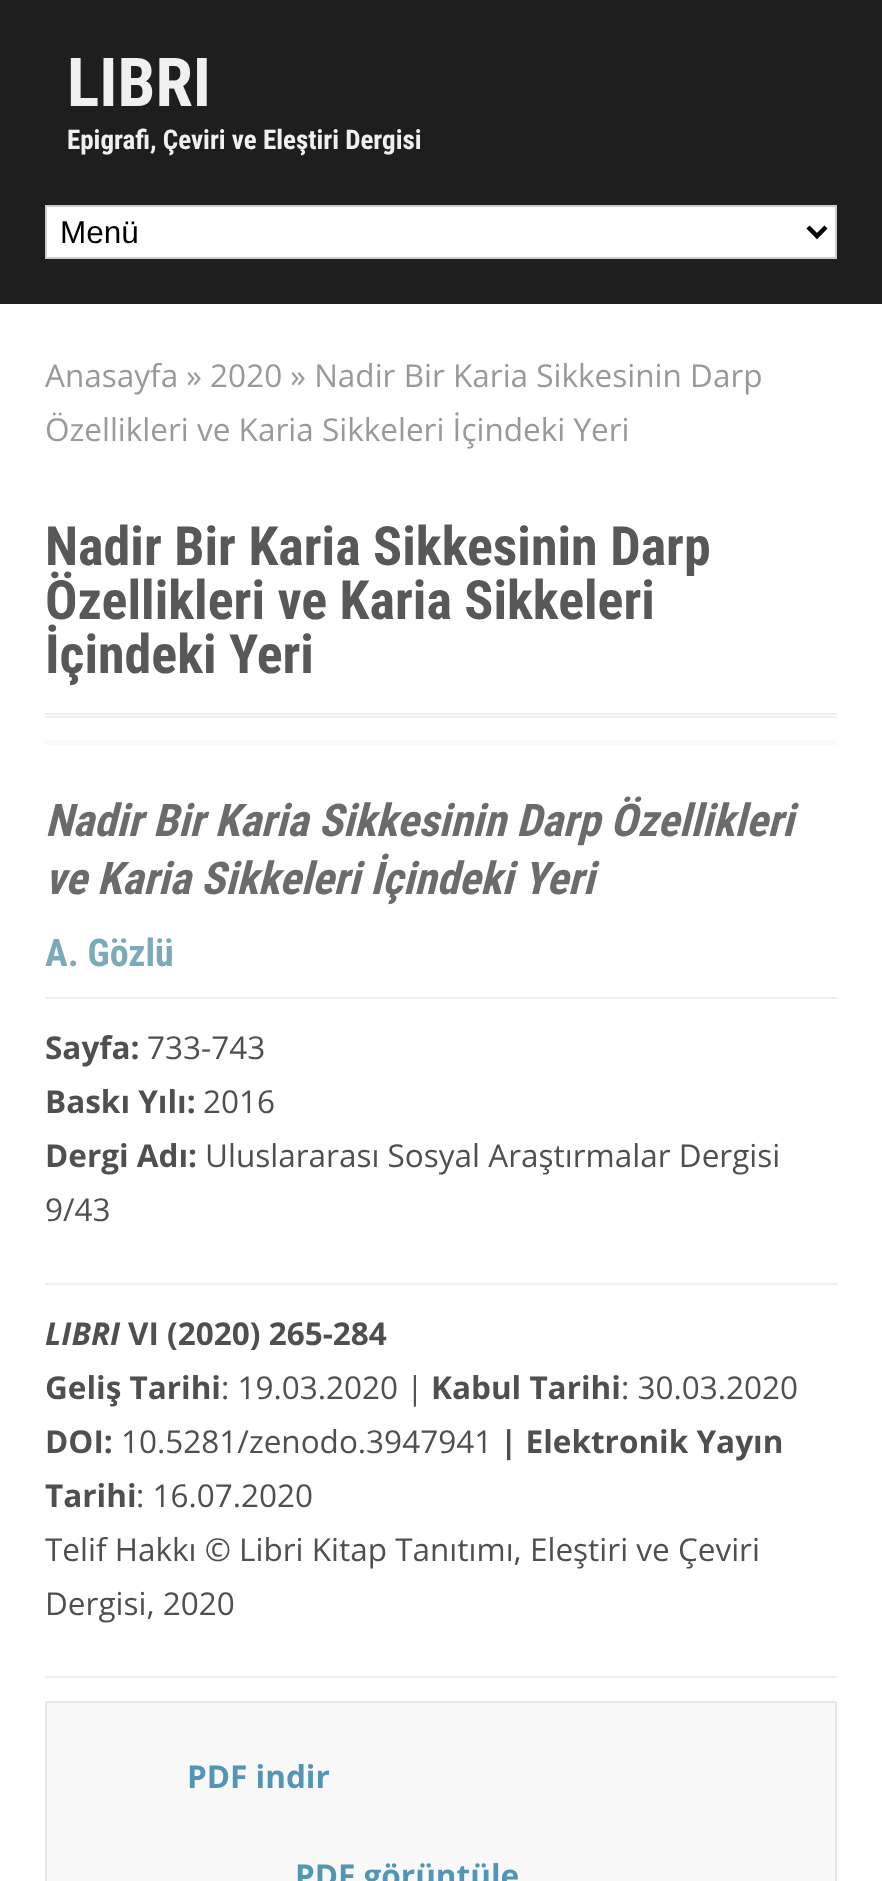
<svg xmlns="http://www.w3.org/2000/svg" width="882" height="1881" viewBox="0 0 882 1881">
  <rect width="100%" height="100%" fill="#ffffff"/>
  <rect x="0" y="0" width="882" height="304" fill="#1e1e1e"/>
  <text x="67" y="106" font-family="Roboto Condensed" font-size="67.5" font-weight="bold" fill="#f0f0f0">LIBRI</text>
  <text x="67" y="149" font-family="Roboto Condensed" font-size="27" font-weight="bold" fill="#f0f0f0">Epigrafi, Çeviri ve Eleştiri Dergisi</text>
  <rect x="46" y="206" width="790" height="52" fill="#ffffff" stroke="#cccccc" stroke-width="2"/>
  <path d="M808 227L817 236L826 227" fill="none" stroke="#000000" stroke-width="4.5"/>
  <text x="60" y="243" font-family="Liberation Sans" font-size="31.5" fill="#000000">Menü</text>
  <text x="45" y="387" font-family="Open Sans" font-size="31.5" fill="#999999">Anasayfa » 2020 » Nadir Bir Karia Sikkesinin Darp</text>
  <text x="45" y="441" font-family="Open Sans" font-size="31.5" fill="#999999">Özellikleri ve Karia Sikkeleri İçindeki Yeri</text>
  <text x="45" y="565" font-family="Roboto Condensed" font-size="54" font-weight="bold" fill="#585858">Nadir Bir Karia Sikkesinin Darp</text>
  <text x="45" y="619" font-family="Roboto Condensed" font-size="54" font-weight="bold" fill="#585858">Özellikleri ve Karia Sikkeleri</text>
  <text x="45" y="673" font-family="Roboto Condensed" font-size="54" font-weight="bold" fill="#585858">İçindeki Yeri</text>
  <rect x="45" y="713" width="792" height="2" fill="#eeeeee"/>
  <rect x="45" y="716" width="792" height="2" fill="#eeeeee"/>
  <rect x="45" y="740" width="792" height="5" fill="#f9f9f9"/>
  <text x="45" y="836" font-family="Roboto Condensed" font-size="45" font-weight="bold" font-style="italic" fill="#6b6b6b">Nadir Bir Karia Sikkesinin Darp Özellikleri</text>
  <text x="45" y="894" font-family="Roboto Condensed" font-size="45" font-weight="bold" font-style="italic" fill="#6b6b6b">ve Karia Sikkeleri İçindeki Yeri</text>
  <text x="45" y="966" font-family="Roboto Condensed" font-size="38" font-weight="bold" fill="#7baaba">A. Gözlü</text>
  <rect x="45" y="997" width="792" height="2" fill="#eeeeee"/>
  <text x="45" y="1059" font-family="Open Sans" font-size="31.5" font-weight="bold" fill="#4f4f4f">Sayfa:</text>
  <text x="147" y="1059" font-family="Open Sans" font-size="31.5" fill="#4f4f4f">733-743</text>
  <text x="45" y="1113" font-family="Open Sans" font-size="31.5" font-weight="bold" fill="#4f4f4f">Baskı Yılı:</text>
  <text x="203" y="1113" font-family="Open Sans" font-size="31.5" fill="#4f4f4f">2016</text>
  <text x="45" y="1167" font-family="Open Sans" font-size="31.5" font-weight="bold" fill="#4f4f4f">Dergi Adı:</text>
  <text x="205" y="1167" font-family="Open Sans" font-size="31.5" fill="#4f4f4f">Uluslararası Sosyal Araştırmalar Dergisi</text>
  <text x="45" y="1221" font-family="Open Sans" font-size="31.5" fill="#4f4f4f">9/43</text>
  <rect x="45" y="1283" width="792" height="2" fill="#eeeeee"/>
  <text x="45" y="1345" font-family="Open Sans" font-size="31.5" font-weight="bold" font-style="italic" fill="#4f4f4f">LIBRI</text>
  <text x="128" y="1345" font-family="Open Sans" font-size="31.5" font-weight="bold" fill="#4f4f4f">VI (2020) 265-284</text>
  <text x="45" y="1399" font-family="Open Sans" font-size="31.5" font-weight="bold" fill="#4f4f4f">Geliş Tarihi</text>
  <text x="221" y="1399" font-family="Open Sans" font-size="31.5" fill="#4f4f4f">: 19.03.2020 |</text>
  <text x="431" y="1399" font-family="Open Sans" font-size="31.5" font-weight="bold" fill="#4f4f4f">Kabul Tarihi</text>
  <text x="621" y="1399" font-family="Open Sans" font-size="31.5" fill="#4f4f4f">: 30.03.2020</text>
  <text x="45" y="1453" font-family="Open Sans" font-size="31.5" font-weight="bold" fill="#4f4f4f">DOI:</text>
  <text x="121" y="1453" font-family="Open Sans" font-size="31.5" fill="#4f4f4f">10.5281/zenodo.3947941</text>
  <text x="500" y="1453" font-family="Open Sans" font-size="31.5" font-weight="bold" fill="#4f4f4f">| Elektronik Yayın</text>
  <text x="45" y="1507" font-family="Open Sans" font-size="31.5" font-weight="bold" fill="#4f4f4f">Tarihi</text>
  <text x="136" y="1507" font-family="Open Sans" font-size="31.5" fill="#4f4f4f">: 16.07.2020</text>
  <text x="45" y="1561" font-family="Open Sans" font-size="31.5" fill="#4f4f4f">Telif Hakkı © Libri Kitap Tanıtımı, Eleştiri ve Çeviri</text>
  <text x="45" y="1615" font-family="Open Sans" font-size="31.5" fill="#4f4f4f">Dergisi, 2020</text>
  <rect x="45" y="1676" width="792" height="2" fill="#eeeeee"/>
  <rect x="46" y="1702" width="790" height="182" rx="1" fill="none" stroke="#e6e6e6" stroke-width="2"/>
  <rect x="47" y="1703" width="788" height="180" rx="2" fill="#f9f9f9"/>
  <text x="187" y="1788" font-family="Open Sans" font-size="31.5" font-weight="bold" fill="#5295b4">PDF indir</text>
  <text x="295" y="1887" font-family="Open Sans" font-size="31.5" font-weight="bold" fill="#5295b4">PDF görüntüle</text>
</svg>
